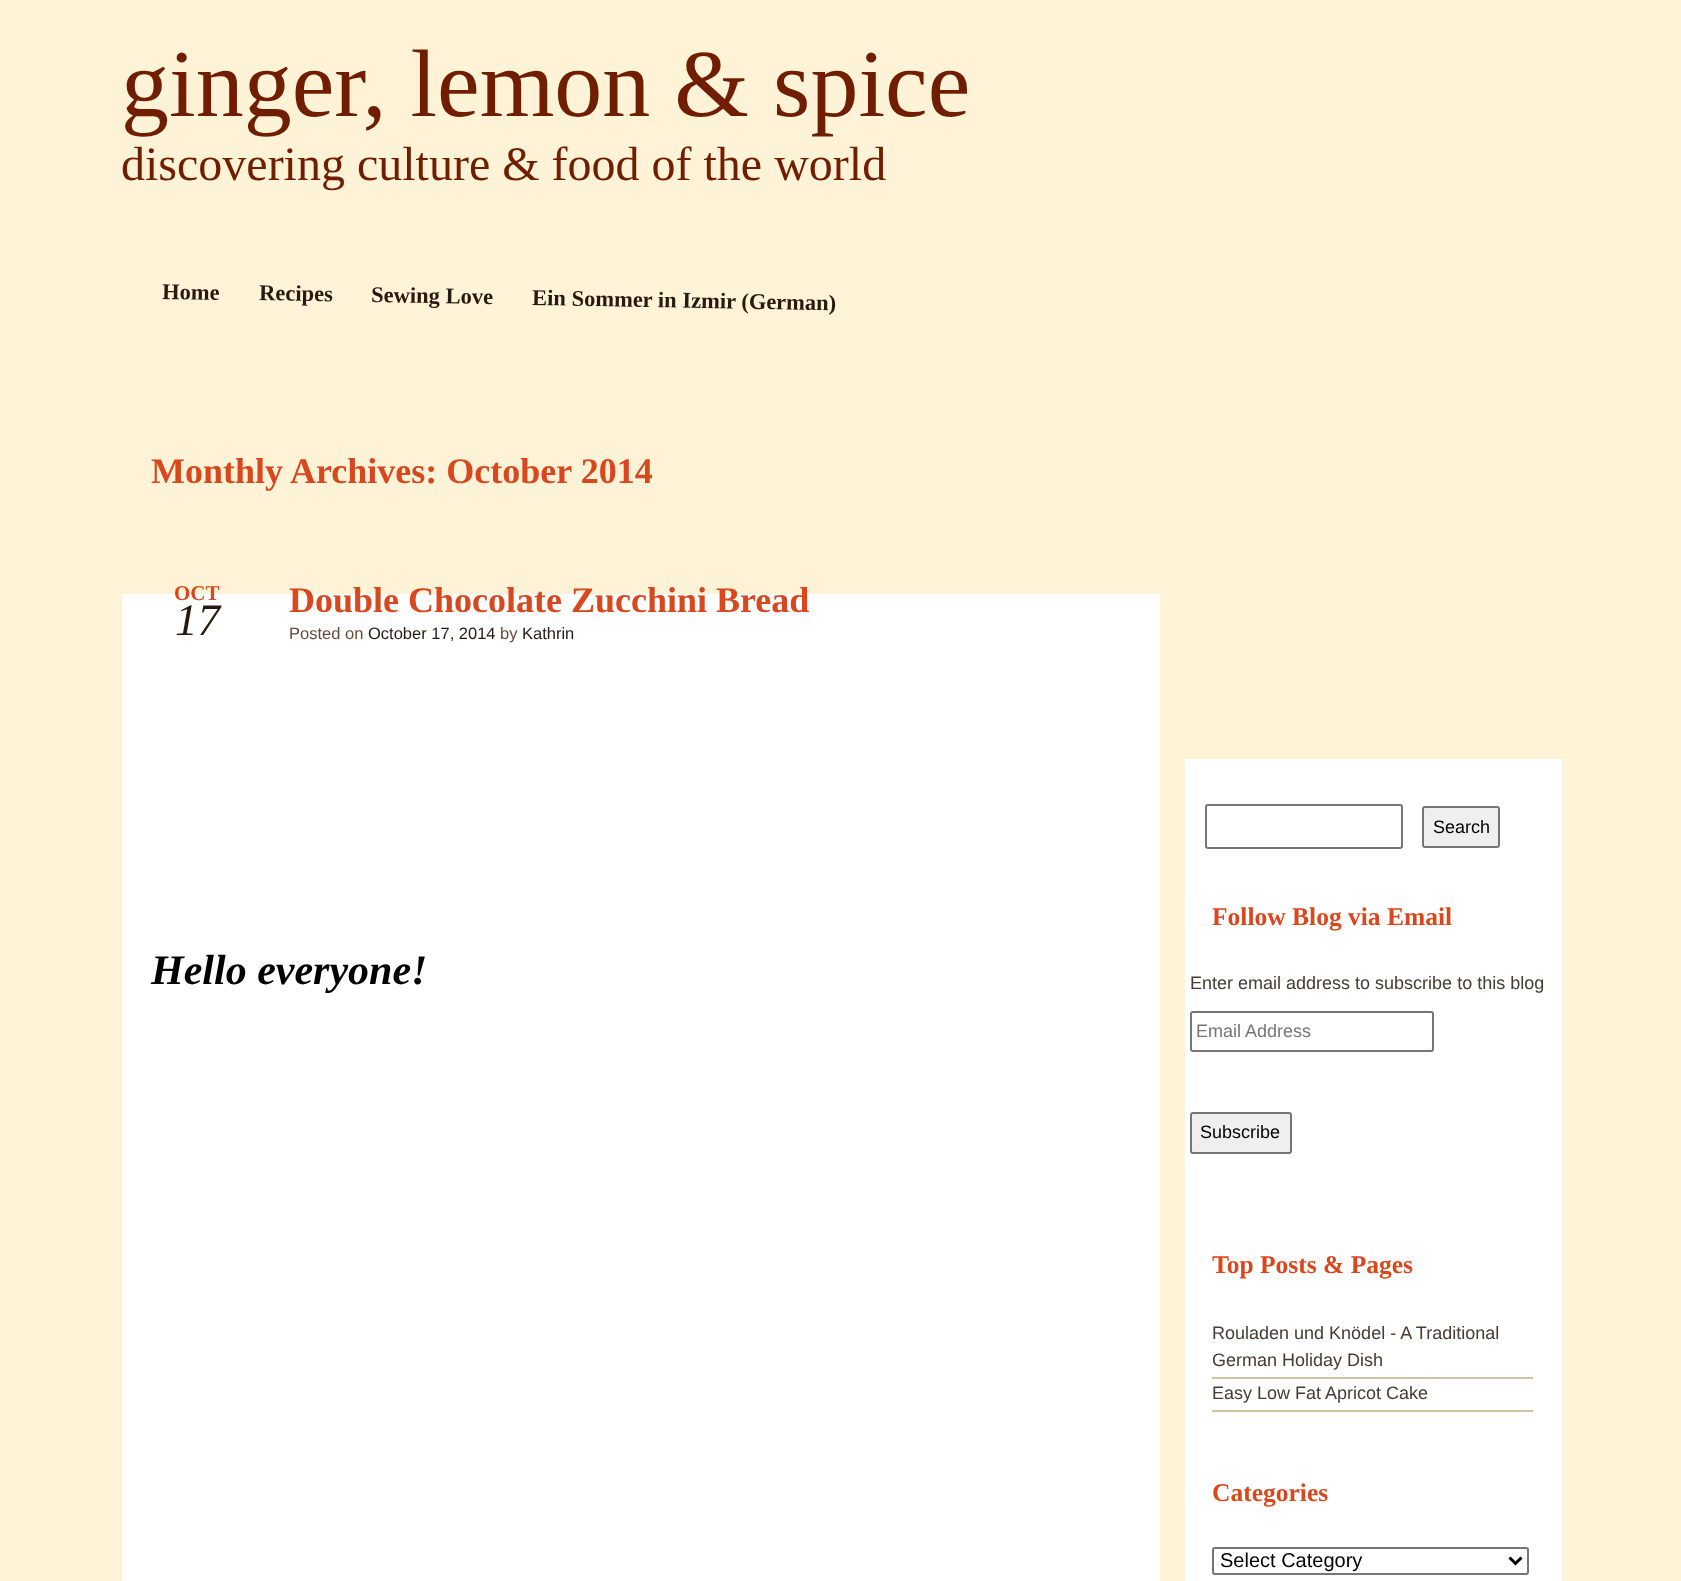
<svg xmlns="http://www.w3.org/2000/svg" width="1681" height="1581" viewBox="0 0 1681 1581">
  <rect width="100%" height="100%" fill="#fef3d7"/>
  <text x="121" y="116" font-family="Liberation Serif" font-size="96" fill="#701d00">ginger, lemon &amp; spice</text>
  <text x="121" y="180" font-family="Liberation Serif" font-size="48" fill="#701d00">discovering culture &amp; food of the world</text>
  <text x="162" y="299" transform="rotate(1 162 299)" font-family="Liberation Serif" font-size="22.5" font-weight="bold" fill="#261a11">Home</text>
  <text x="259" y="300" transform="rotate(1 259 300)" font-family="Liberation Serif" font-size="22.5" font-weight="bold" fill="#261a11">Recipes</text>
  <text x="371" y="302" transform="rotate(1 371 302)" font-family="Liberation Serif" font-size="22.5" font-weight="bold" fill="#261a11">Sewing Love</text>
  <text x="532" y="305" transform="rotate(1 532 305)" font-family="Liberation Serif" font-size="22.5" font-weight="bold" fill="#261a11">Ein Sommer in Izmir (German)</text>
  <rect x="122" y="594" width="1038" height="987" fill="#ffffff"/>
  <text x="151" y="483" font-family="Liberation Serif" font-size="36" font-weight="bold" fill="#d8471d">Monthly Archives: October 2014</text>
  <text x="174" y="600" font-family="Liberation Serif" font-size="21" font-weight="bold" fill="#d8471d">OCT</text>
  <text x="175" y="635" font-family="Liberation Serif" font-size="45" font-style="italic" fill="#261a11">17</text>
  <text x="289" y="612" font-family="Liberation Serif" font-size="36" font-weight="bold" fill="#d8471d">Double Chocolate Zucchini Bread</text>
  <text x="289" y="639" font-family="Liberation Sans" font-size="16.5" fill="#644a3d">Posted on</text>
  <text x="368" y="639" font-family="Liberation Sans" font-size="16.5" fill="#261a11">October 17, 2014</text>
  <text x="500" y="639" font-family="Liberation Sans" font-size="16.5" fill="#644a3d">by</text>
  <text x="522" y="639" font-family="Liberation Sans" font-size="16.5" fill="#261a11">Kathrin</text>
  <text x="151" y="984" font-family="Liberation Serif" font-size="42" font-weight="bold" font-style="italic" fill="#000000">Hello everyone!</text>
  <rect x="1185" y="759" width="377" height="822" fill="#ffffff"/>
  <rect x="1206" y="805" width="196" height="43" rx="2" fill="none" stroke="#767676" stroke-width="2"/>
  <rect x="1423" y="807" width="76" height="40" rx="2" fill="#efefef" stroke="#767676" stroke-width="2"/>
  <text x="1433" y="833" font-family="Liberation Sans" font-size="18" fill="#000000">Search</text>
  <text x="1212" y="925" font-family="Liberation Serif" font-size="25.5" font-weight="bold" fill="#d8471d">Follow Blog via Email</text>
  <text x="1190" y="989" font-family="Liberation Sans" font-size="18" fill="#463b33">Enter email address to subscribe to this blog</text>
  <rect x="1191" y="1012" width="242" height="39" rx="2" fill="none" stroke="#767676" stroke-width="2"/>
  <text x="1196" y="1037" font-family="Liberation Sans" font-size="18" fill="#757575">Email Address</text>
  <rect x="1191" y="1113" width="100" height="40" rx="2" fill="#efefef" stroke="#767676" stroke-width="2"/>
  <text x="1200" y="1138" font-family="Liberation Sans" font-size="18" fill="#000000">Subscribe</text>
  <text x="1212" y="1273" font-family="Liberation Serif" font-size="25.5" font-weight="bold" fill="#d8471d">Top Posts &amp; Pages</text>
  <rect x="1212" y="1377" width="321" height="2" fill="#d2c4a2"/>
  <text x="1212" y="1339" font-family="Liberation Sans" font-size="18" fill="#463b33">Rouladen und Knödel - A Traditional</text>
  <text x="1212" y="1366" font-family="Liberation Sans" font-size="18" fill="#463b33">German Holiday Dish</text>
  <rect x="1212" y="1410" width="321" height="2" fill="#d2c4a2"/>
  <text x="1212" y="1399" font-family="Liberation Sans" font-size="18" fill="#463b33">Easy Low Fat Apricot Cake</text>
  <text x="1212" y="1501" font-family="Liberation Serif" font-size="25.5" font-weight="bold" fill="#d8471d">Categories</text>
  <rect x="1213" y="1548" width="315" height="26" rx="2" fill="none" stroke="#767676" stroke-width="2"/>
  <path d="M1509.5 1557.5L1515.5 1563.5L1521.5 1557.5" fill="none" stroke="#000000" stroke-width="3"/>
  <text x="1220" y="1567" font-family="Liberation Sans" font-size="20" fill="#000000">Select Category</text>
</svg>
